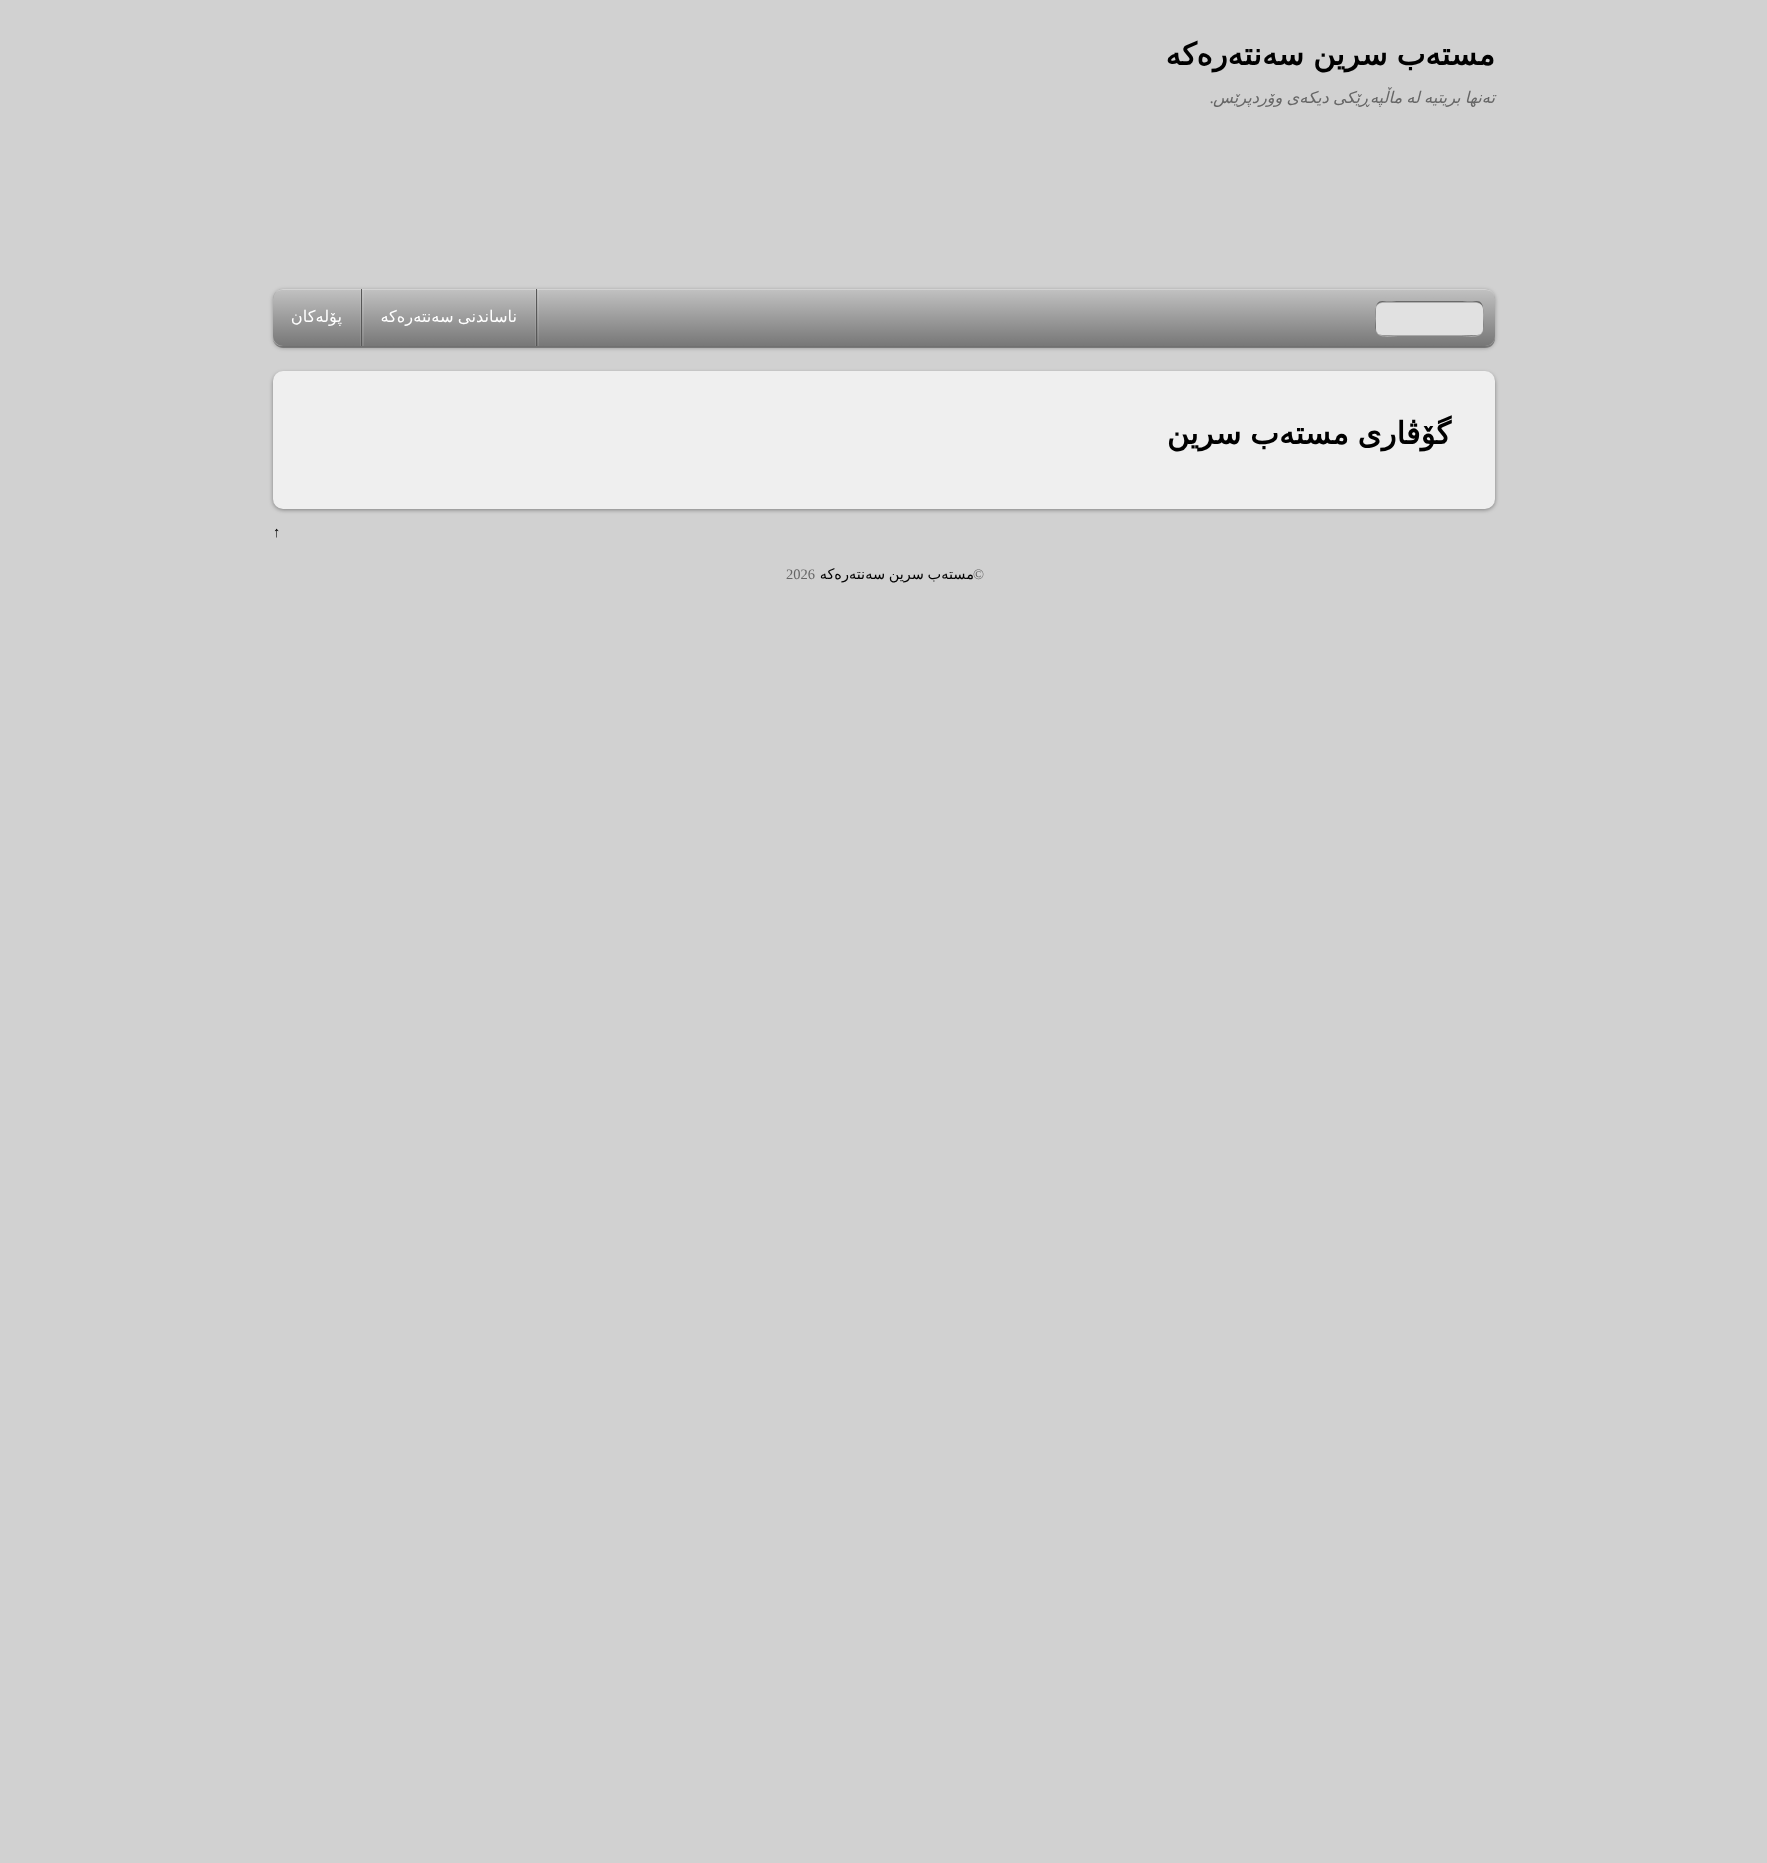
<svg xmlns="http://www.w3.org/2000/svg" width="1767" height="1863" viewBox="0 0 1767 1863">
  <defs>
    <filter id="blur1" x="-50%" y="-200%" width="200%" height="500%"><feGaussianBlur stdDeviation="2"/></filter>
    <linearGradient id="g1" gradientUnits="userSpaceOnUse" x1="884" y1="289" x2="884" y2="346"><stop offset="0" stop-color="#ffffff" stop-opacity="0.55"/><stop offset="1" stop-color="#ffffff" stop-opacity="0"/></linearGradient>
  </defs>
  <rect width="100%" height="100%" fill="#d1d1d1"/>
  <text x="1495" y="65" word-spacing="-1" font-family="DejaVu Sans" font-size="30.75" font-weight="bold" direction="rtl" fill="#000000">مستەب سرین سەنتەرەکە</text>
  <text x="1495" y="103" word-spacing="-1" font-family="DejaVu Sans" font-size="16.25" font-style="italic" direction="rtl" fill="#666666">تەنها بریتیە لە ماڵپەڕێکی دیکەی وۆردپرێس</text>
  <text x="1214" y="103" font-family="Liberation Serif" font-size="16.25" font-style="italic" direction="rtl" fill="#666666">.</text>
  <rect x="273" y="290" width="1222" height="58" rx="10" fill="#000000" fill-opacity="0.3" filter="url(#blur1)"/>
  <path d="M273 340C274 344 278 348 283 348H1485C1491 348 1495 344 1495 338V336C1495 342 1491 346 1485 346H282C278 346 275 344 273 340Z" fill="#000000" fill-opacity="0.3"/>
  <rect x="273" y="289" width="1222" height="57" rx="10" fill="#777777"/>
  <rect x="273" y="289" width="1222" height="57" rx="10" fill="url(#g1)"/>
  <path d="M1376 308V331C1378 340 1395 336 1398 336H1461C1464 336 1481 340 1483 331V323C1483 320 1484 310 1482 307V330C1481 339 1464 335 1461 335H1398C1386 335 1376 339 1376 325Z" fill="#ffffff" fill-opacity="0.3"/>
  <path d="M1382 301C1374 301 1376 313 1376 318C1376 321 1375 327 1376 330V307C1378 299 1395 302 1398 302H1461C1464 302 1481 299 1482 307V315C1482 319 1484 328 1482 332C1484 328 1483 321 1483 318C1483 313 1485 301 1477 301Z" fill="#000000" fill-opacity="0.4"/>
  <rect x="1376" y="303" width="107" height="32" rx="6" fill="#e1e1e1"/>
  <path d="M282 290H1485C1491 290 1495 294 1495 300V299C1495 293 1491 289 1485 289H283C280 289 277 290 275 293C277 291 280 290 282 290Z" fill="#ffffff" fill-opacity="0.3"/>
  <rect x="538" y="289" width="1" height="57" fill="#ffffff" fill-opacity="0.1"/>
  <rect x="535" y="289" width="1" height="57" fill="#ffffff" fill-opacity="0.1"/>
  <rect x="536" y="289" width="1" height="57" fill="#575757"/>
  <text x="517" y="322" word-spacing="-1" font-family="DejaVu Sans" font-size="16.25" direction="rtl" fill="#ffffff">ناساندنی سەنتەرەکە</text>
  <rect x="362" y="289" width="2" height="57" fill="#ffffff" fill-opacity="0.1"/>
  <rect x="360" y="289" width="1" height="57" fill="#ffffff" fill-opacity="0.1"/>
  <rect x="361" y="289" width="1" height="57" fill="#575757"/>
  <text x="342" y="322" font-family="DejaVu Sans" font-size="16.25" direction="rtl" fill="#ffffff">پۆلەکان</text>
  <rect x="273" y="373" width="1222" height="137" rx="10" fill="#000000" fill-opacity="0.4" filter="url(#blur1)"/>
  <rect x="273" y="371" width="1222" height="138" rx="10" fill="#efefef"/>
  <text x="1451" y="444" word-spacing="-1" font-family="DejaVu Sans" font-size="30.75" font-weight="bold" direction="rtl" fill="#000000">گۆڤاری مستەب سرین</text>
  <text x="273" y="537" font-family="Liberation Serif" font-size="14.5" fill="#000000">↑</text>
  <text x="973" y="579" font-family="Liberation Serif" font-size="14.5" fill="#666666">©</text>
  <text x="974" y="579" word-spacing="-1" font-family="DejaVu Sans" font-size="14.5" direction="rtl" fill="#000000">مستەب سرین سەنتەرەکە</text>
  <text x="786" y="579" font-family="Liberation Serif" font-size="14.5" fill="#666666">2026</text>
</svg>
